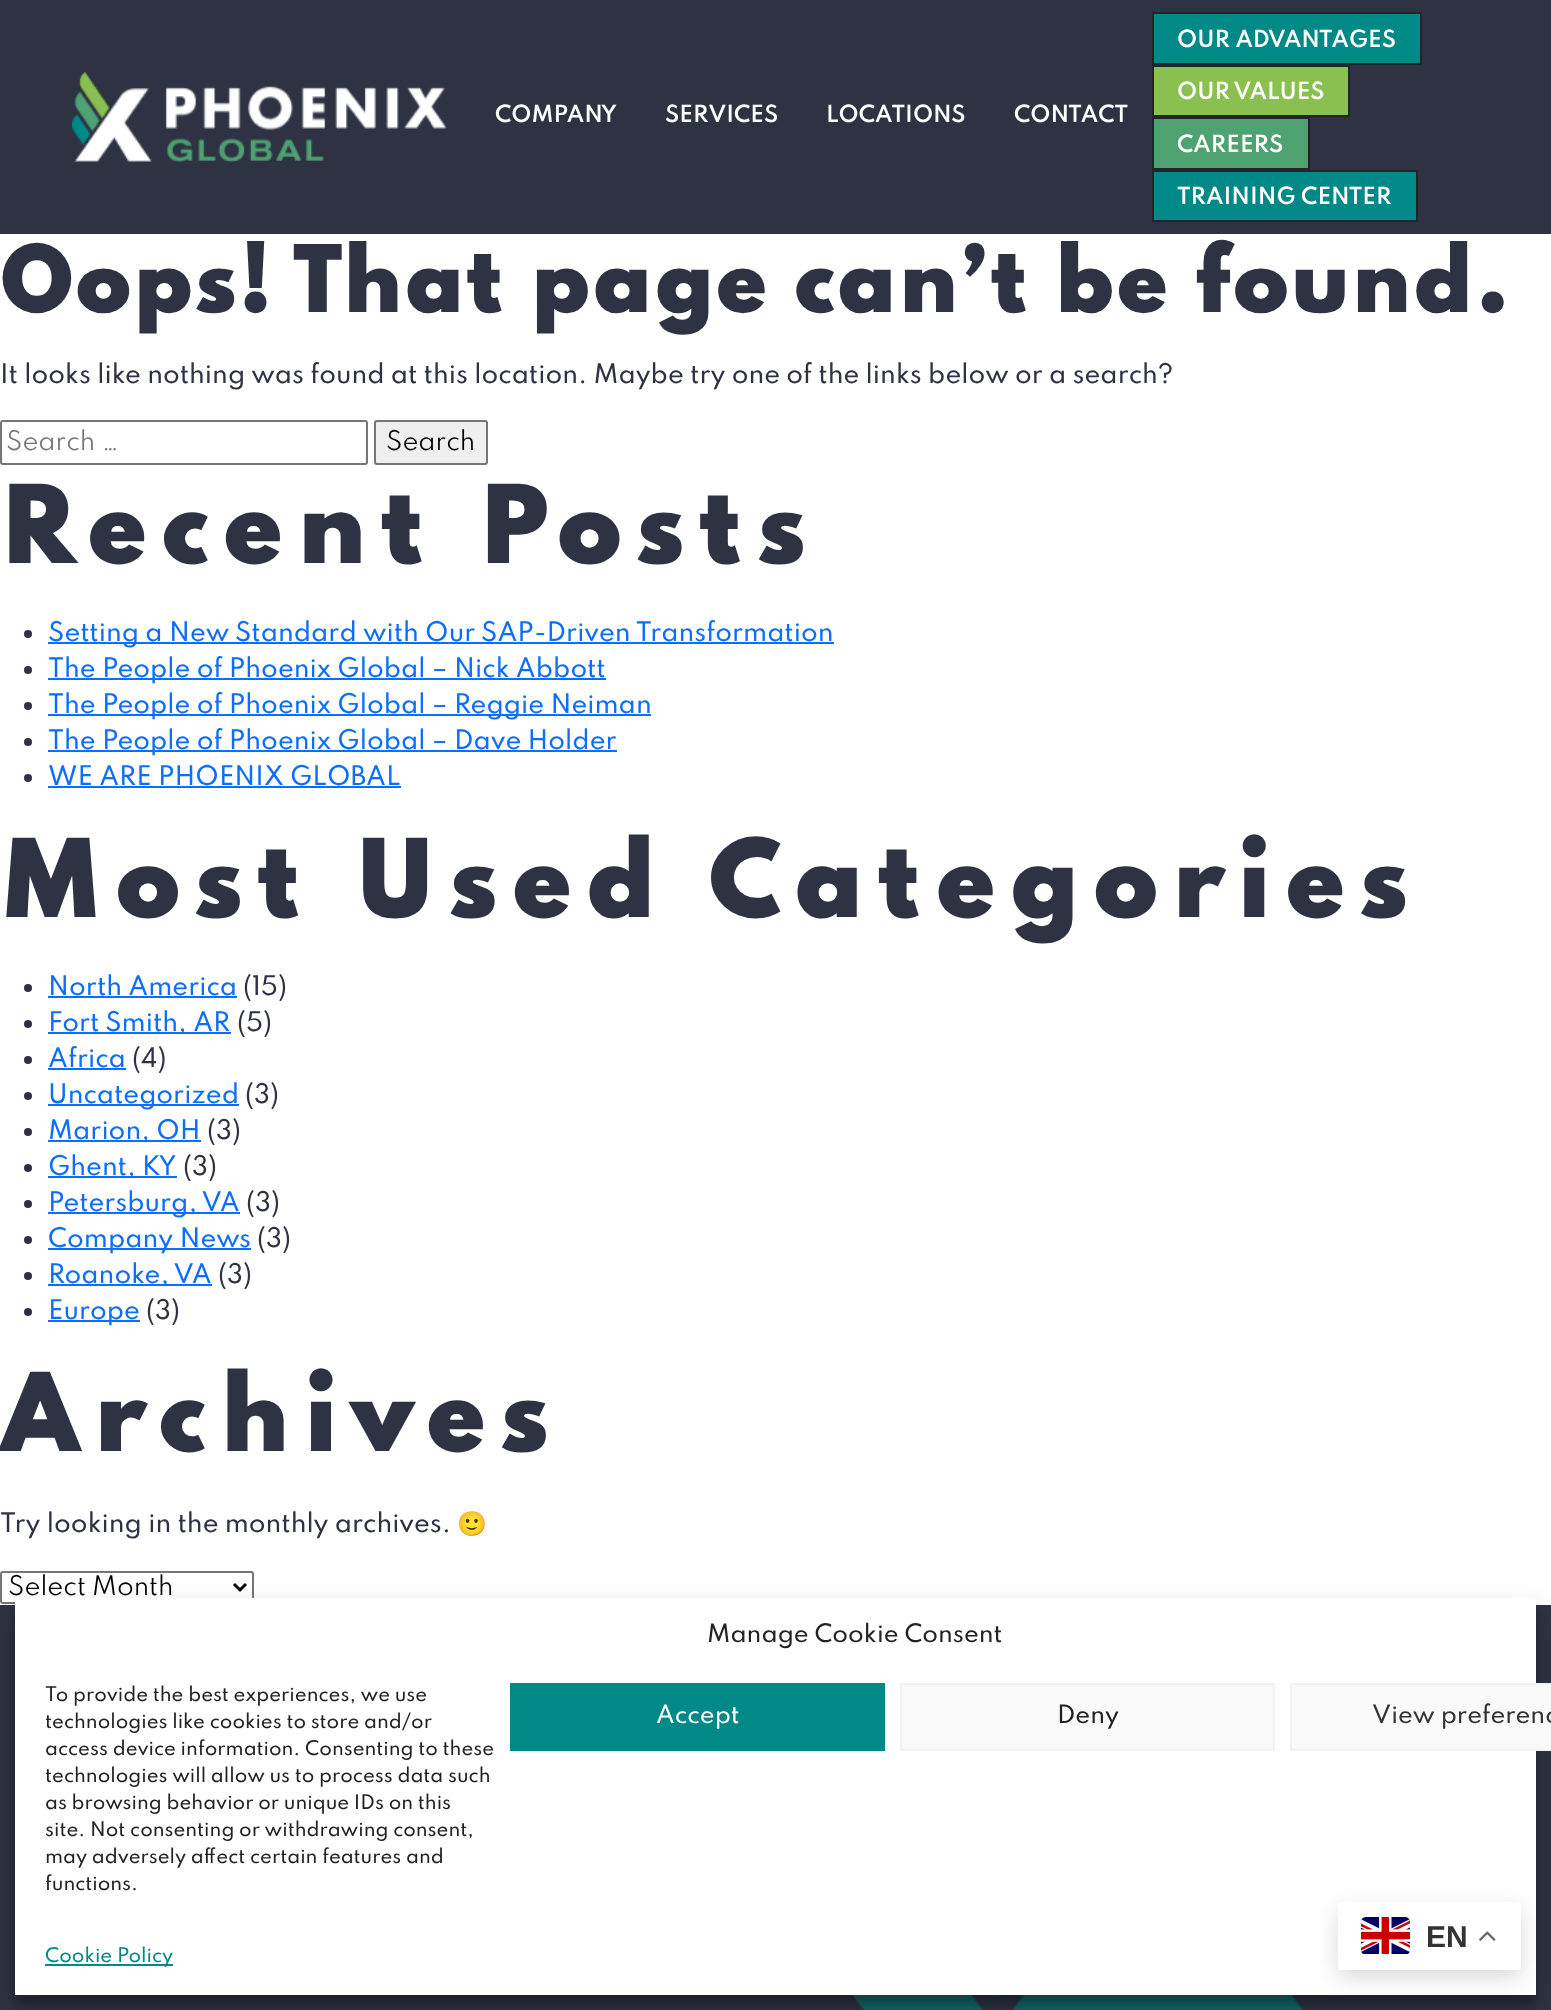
<svg xmlns="http://www.w3.org/2000/svg" width="1551" height="2010" viewBox="0 0 1551 2010">
  <defs>
    <filter id="blur1" x="-50%" y="-200%" width="200%" height="500%"><feGaussianBlur stdDeviation="4.5"/></filter>
    <filter id="blur2" x="-50%" y="-200%" width="200%" height="500%"><feGaussianBlur stdDeviation="15"/></filter>
    <filter id="blur3" x="-50%" y="-200%" width="200%" height="500%"><feGaussianBlur stdDeviation="11"/></filter>
  </defs>
  <rect width="100%" height="100%" fill="#ffffff"/>
  <rect x="0" y="0" width="1551" height="234" fill="#2e3243"/>
  <image x="72" y="72" width="375" height="90" href="img1.png"/>
  <text x="495" y="122" font-family="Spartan" font-size="21" font-weight="600" fill="#ffffff">COMPANY</text>
  <text x="665" y="122" font-family="Spartan" font-size="21" font-weight="600" fill="#ffffff">SERVICES</text>
  <text x="826" y="122" font-family="Spartan" font-size="21" font-weight="600" fill="#ffffff">LOCATIONS</text>
  <text x="1014" y="122" font-family="Spartan" font-size="21" font-weight="600" fill="#ffffff">CONTACT</text>
  <rect x="1153" y="13" width="268" height="51" fill="#008987" stroke="#212529" stroke-width="2"/>
  <text x="1177" y="47" font-family="Spartan" font-size="21" font-weight="600" fill="#ffffff">OUR ADVANTAGES</text>
  <rect x="1153" y="66" width="196" height="50" fill="#8ac04f" stroke="#212529" stroke-width="2"/>
  <text x="1177" y="99" font-family="Spartan" font-size="21" font-weight="600" fill="#ffffff">OUR VALUES</text>
  <rect x="1153" y="118" width="156" height="51" fill="#4fa271" stroke="#212529" stroke-width="2"/>
  <text x="1177" y="152" font-family="Spartan" font-size="21" font-weight="600" fill="#ffffff">CAREERS</text>
  <rect x="1153" y="171" width="264" height="50" fill="#008987" stroke="#212529" stroke-width="2"/>
  <text x="1177" y="204" font-family="Spartan" font-size="21" font-weight="600" fill="#ffffff">TRAINING CENTER</text>
  <text x="0" y="312" font-family="Spartan" font-size="82.5" font-weight="900" letter-spacing="1.5" fill="#2e3243">Oops! That page can’t be found.</text>
  <text x="0" y="383" font-family="Spartan" font-size="24" font-weight="500" fill="#2e3243">It looks like nothing was found at this location. Maybe try one of the links below or a search?</text>
  <rect x="1" y="421" width="366" height="43" rx="2" fill="none" stroke="#767676" stroke-width="2"/>
  <text x="6" y="450" font-family="Spartan" font-size="24" fill="#757575">Search …</text>
  <rect x="375" y="421" width="112" height="43" rx="2" fill="#efefef" stroke="#767676" stroke-width="2"/>
  <text x="386" y="450" font-family="Spartan" font-size="24" fill="#000000">Search</text>
  <text x="0" y="563" font-family="Spartan" font-size="96" font-weight="900" letter-spacing="13.4" fill="#2e3243">Recent Posts</text>
  <circle cx="28" cy="634" r="4" fill="#2e3243"/>
  <rect x="48" y="642" width="786" height="2" fill="#0d6efd"/>
  <text x="48" y="641" font-family="Spartan" font-size="24" font-weight="500" fill="#0d6efd">Setting a New Standard with Our SAP-Driven Transformation</text>
  <circle cx="28" cy="670" r="4" fill="#2e3243"/>
  <rect x="48" y="678" width="558" height="2" fill="#0d6efd"/>
  <text x="48" y="677" font-family="Spartan" font-size="24" font-weight="500" fill="#0d6efd">The People of Phoenix Global – Nick Abbott</text>
  <circle cx="28" cy="706" r="4" fill="#2e3243"/>
  <rect x="48" y="714" width="603" height="2" fill="#0d6efd"/>
  <text x="48" y="713" font-family="Spartan" font-size="24" font-weight="500" fill="#0d6efd">The People of Phoenix Global – Reggie Neiman</text>
  <circle cx="28" cy="742" r="4" fill="#2e3243"/>
  <rect x="48" y="750" width="569" height="2" fill="#0d6efd"/>
  <text x="48" y="749" font-family="Spartan" font-size="24" font-weight="500" fill="#0d6efd">The People of Phoenix Global – Dave Holder</text>
  <circle cx="28" cy="778" r="4" fill="#2e3243"/>
  <text x="48" y="785" font-family="Spartan" font-size="24" font-weight="500" fill="#0d6efd">WE ARE PHOENIX GLOBAL</text>
  <rect x="48" y="786" width="353" height="2" fill="#0d6efd"/>
  <text x="0" y="917" font-family="Spartan" font-size="96" font-weight="900" letter-spacing="13.4" fill="#2e3243">Most Used Categories</text>
  <circle cx="28" cy="988" r="4" fill="#2e3243"/>
  <text x="48" y="995" font-family="Spartan" font-size="24" font-weight="500" fill="#0d6efd">North America</text>
  <rect x="48" y="996" width="189" height="2" fill="#0d6efd"/>
  <text x="243" y="995" font-family="Spartan" font-size="24" font-weight="500" fill="#2e3243">(15)</text>
  <circle cx="28" cy="1024" r="4" fill="#2e3243"/>
  <rect x="48" y="1032" width="183" height="2" fill="#0d6efd"/>
  <text x="48" y="1031" font-family="Spartan" font-size="24" font-weight="500" fill="#0d6efd">Fort Smith, AR</text>
  <text x="237" y="1031" font-family="Spartan" font-size="24" font-weight="500" fill="#2e3243">(5)</text>
  <circle cx="28" cy="1060" r="4" fill="#2e3243"/>
  <text x="48" y="1067" font-family="Spartan" font-size="24" font-weight="500" fill="#0d6efd">Africa</text>
  <rect x="48" y="1068" width="78" height="2" fill="#0d6efd"/>
  <text x="132" y="1067" font-family="Spartan" font-size="24" font-weight="500" fill="#2e3243">(4)</text>
  <circle cx="28" cy="1096" r="4" fill="#2e3243"/>
  <rect x="48" y="1104" width="191" height="2" fill="#0d6efd"/>
  <text x="48" y="1103" font-family="Spartan" font-size="24" font-weight="500" fill="#0d6efd">Uncategorized</text>
  <text x="245" y="1103" font-family="Spartan" font-size="24" font-weight="500" fill="#2e3243">(3)</text>
  <circle cx="28" cy="1132" r="4" fill="#2e3243"/>
  <rect x="48" y="1140" width="153" height="2" fill="#0d6efd"/>
  <text x="48" y="1139" font-family="Spartan" font-size="24" font-weight="500" fill="#0d6efd">Marion, OH</text>
  <text x="207" y="1139" font-family="Spartan" font-size="24" font-weight="500" fill="#2e3243">(3)</text>
  <circle cx="28" cy="1168" r="4" fill="#2e3243"/>
  <rect x="48" y="1176" width="129" height="2" fill="#0d6efd"/>
  <text x="48" y="1175" font-family="Spartan" font-size="24" font-weight="500" fill="#0d6efd">Ghent, KY</text>
  <text x="183" y="1175" font-family="Spartan" font-size="24" font-weight="500" fill="#2e3243">(3)</text>
  <circle cx="28" cy="1204" r="4" fill="#2e3243"/>
  <rect x="48" y="1212" width="192" height="2" fill="#0d6efd"/>
  <text x="48" y="1211" font-family="Spartan" font-size="24" font-weight="500" fill="#0d6efd">Petersburg, VA</text>
  <text x="246" y="1211" font-family="Spartan" font-size="24" font-weight="500" fill="#2e3243">(3)</text>
  <circle cx="28" cy="1240" r="4" fill="#2e3243"/>
  <rect x="48" y="1248" width="203" height="2" fill="#0d6efd"/>
  <text x="48" y="1247" font-family="Spartan" font-size="24" font-weight="500" fill="#0d6efd">Company News</text>
  <text x="257" y="1247" font-family="Spartan" font-size="24" font-weight="500" fill="#2e3243">(3)</text>
  <circle cx="28" cy="1276" r="4" fill="#2e3243"/>
  <rect x="48" y="1284" width="164" height="2" fill="#0d6efd"/>
  <text x="48" y="1283" font-family="Spartan" font-size="24" font-weight="500" fill="#0d6efd">Roanoke, VA</text>
  <text x="218" y="1283" font-family="Spartan" font-size="24" font-weight="500" fill="#2e3243">(3)</text>
  <circle cx="28" cy="1312" r="4" fill="#2e3243"/>
  <rect x="48" y="1320" width="92" height="2" fill="#0d6efd"/>
  <text x="48" y="1319" font-family="Spartan" font-size="24" font-weight="500" fill="#0d6efd">Europe</text>
  <text x="146" y="1319" font-family="Spartan" font-size="24" font-weight="500" fill="#2e3243">(3)</text>
  <text x="0" y="1451" font-family="Spartan" font-size="96" font-weight="900" letter-spacing="13.4" fill="#2e3243">Archives</text>
  <text x="0" y="1532" font-family="Spartan" font-size="24" font-weight="500" fill="#2e3243">Try looking in the monthly archives.</text>
  <text x="457" y="1532" font-family="Noto Color Emoji" font-size="24" fill="#2e3243">🙂</text>
  <rect x="1" y="1572" width="252" height="31" rx="2" fill="none" stroke="#767676" stroke-width="2"/>
  <path d="M234 1584L240 1590L246 1584" fill="none" stroke="#000000" stroke-width="3"/>
  <text x="8" y="1595" font-family="Spartan" font-size="24" fill="#000000">Select Month</text>
  <rect x="0" y="1605" width="1551" height="405" fill="#2e3243"/>
  <image x="851" y="1995" width="452" height="15" href="img2.png"/>
  <rect x="15" y="1607" width="1521" height="397" fill="#000000" fill-opacity="0.23" filter="url(#blur1)"/>
  <rect x="15" y="1613" width="1521" height="397" fill="#000000" fill-opacity="0.19" filter="url(#blur2)"/>
  <rect x="15" y="1598" width="1521" height="397" fill="#ffffff"/>
  <text x="707" y="1642" font-family="Spartan" font-size="22.5" font-weight="500" fill="#222222">Manage Cookie Consent</text>
  <text x="45" y="1701" font-family="Spartan" font-size="18" font-weight="500" fill="#222222">To provide the best experiences, we use</text>
  <text x="45" y="1728" font-family="Spartan" font-size="18" font-weight="500" fill="#222222">technologies like cookies to store and/or</text>
  <text x="45" y="1755" font-family="Spartan" font-size="18" font-weight="500" fill="#222222">access device information. Consenting to these</text>
  <text x="45" y="1782" font-family="Spartan" font-size="18" font-weight="500" fill="#222222">technologies will allow us to process data such</text>
  <text x="45" y="1809" font-family="Spartan" font-size="18" font-weight="500" fill="#222222">as browsing behavior or unique IDs on this</text>
  <text x="45" y="1836" font-family="Spartan" font-size="18" font-weight="500" fill="#222222">site. Not consenting or withdrawing consent,</text>
  <text x="45" y="1863" font-family="Spartan" font-size="18" font-weight="500" fill="#222222">may adversely affect certain features and</text>
  <text x="45" y="1890" font-family="Spartan" font-size="18" font-weight="500" fill="#222222">functions.</text>
  <rect x="510" y="1683" width="375" height="68" fill="#008987"/>
  <text x="656" y="1723" font-family="Spartan" font-size="22.5" font-weight="500" fill="#ffffff">Accept</text>
  <rect x="901" y="1684" width="373" height="66" fill="#f9f9f9" stroke="#f2f2f2" stroke-width="2"/>
  <text x="1057" y="1723" font-family="Spartan" font-size="22.5" font-weight="500" fill="#222222">Deny</text>
  <rect x="1291" y="1684" width="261" height="66" fill="#f9f9f9" stroke="#f2f2f2" stroke-width="2"/>
  <text x="1372" y="1723" font-family="Spartan" font-size="22.5" font-weight="500" fill="#333333">View preferenc</text>
  <rect x="45" y="1964" width="128" height="2" fill="#008987"/>
  <text x="45" y="1962" font-family="Spartan" font-size="18" font-weight="500" fill="#008987">Cookie Policy</text>
  <rect x="1338" y="1910" width="183" height="67" rx="3" fill="#000000" fill-opacity="0.15" filter="url(#blur3)"/>
  <rect x="1338" y="1902" width="183" height="68" rx="3" fill="#ffffff"/>
  <image x="1361" y="1917" width="49" height="38" href="img3.png"/>
  <text x="1426" y="1947" font-family="Liberation Sans" font-size="30" font-weight="bold" fill="#333333">EN</text>
  <image x="1479" y="1931" width="17" height="10" href="img4.png"/>
</svg>
